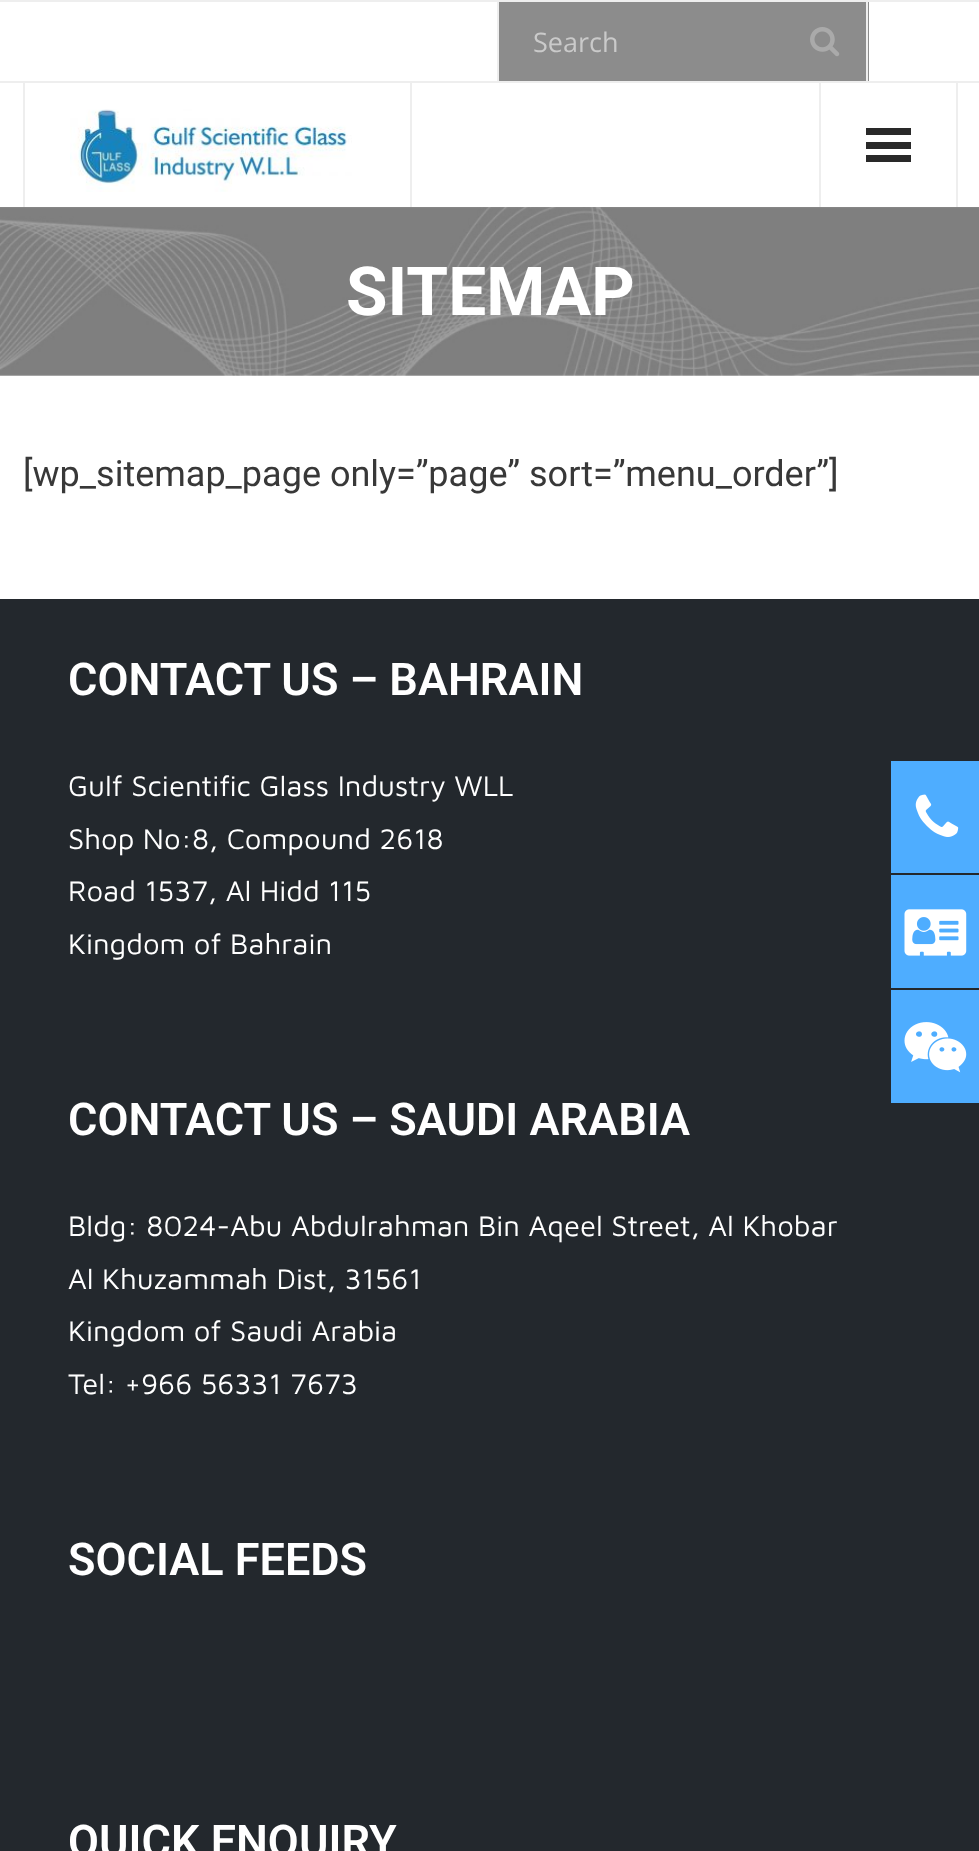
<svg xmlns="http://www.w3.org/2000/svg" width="979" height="1851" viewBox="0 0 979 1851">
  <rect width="100%" height="100%" fill="#ffffff"/>
  <rect x="0" y="0" width="979" height="2" fill="#eeeeee"/>
  <rect x="0" y="81" width="979" height="2" fill="#eeeeee"/>
  <rect x="499" y="2" width="370" height="79" fill="#8c8c8c"/>
  <rect x="866" y="2" width="2" height="79" fill="#eeeeee"/>
  <rect x="497" y="2" width="2" height="79" fill="#eeeeee"/>
  <text x="533" y="52" font-family="Open Sans" font-size="27" fill="#cacaca">Search</text>
  <image x="810" y="27" width="30" height="30" href="img1.png"/>
  <rect x="410" y="83" width="2" height="124" fill="#eeeeee"/>
  <rect x="23" y="83" width="2" height="124" fill="#eeeeee"/>
  <image x="70" y="109" width="282" height="83" href="img2.png"/>
  <rect x="956" y="83" width="2" height="124" fill="#eeeeee"/>
  <rect x="819" y="83" width="2" height="124" fill="#eeeeee"/>
  <rect x="866" y="128" width="45" height="7" fill="#292929"/>
  <rect x="866" y="142" width="45" height="7" fill="#292929"/>
  <rect x="866" y="155" width="45" height="7" fill="#292929"/>
  <image x="0" y="207" width="979" height="169" href="img3.png"/>
  <text x="346" y="315" font-family="Roboto" font-size="67.5" font-weight="bold" fill="#ffffff">SITEMAP</text>
  <text x="23" y="486" font-family="Roboto" font-size="36" fill="#383838">[wp_sitemap_page only=”page” sort=”menu_order”]</text>
  <rect x="0" y="599" width="979" height="1252" fill="#23282d"/>
  <text x="68" y="695" font-family="Roboto" font-size="45" font-weight="600" fill="#ffffff">CONTACT US – BAHRAIN</text>
  <text x="68" y="796" font-family="Maven Pro" font-size="29.25" fill="#ffffff">Gulf Scientific Glass Industry WLL</text>
  <text x="68" y="849" font-family="Maven Pro" font-size="29.25" fill="#ffffff">Shop No:8, Compound 2618</text>
  <text x="68" y="901" font-family="Maven Pro" font-size="29.25" fill="#ffffff">Road 1537, Al Hidd 115</text>
  <text x="68" y="954" font-family="Maven Pro" font-size="29.25" fill="#ffffff">Kingdom of Bahrain</text>
  <text x="68" y="1135" font-family="Roboto" font-size="45" font-weight="600" fill="#ffffff">CONTACT US – SAUDI ARABIA</text>
  <text x="68" y="1236" font-family="Maven Pro" font-size="29.25" fill="#ffffff">Bldg: 8024-Abu Abdulrahman Bin Aqeel Street, Al Khobar</text>
  <text x="68" y="1289" font-family="Maven Pro" font-size="29.25" fill="#ffffff">Al Khuzammah Dist, 31561</text>
  <text x="68" y="1341" font-family="Maven Pro" font-size="29.25" fill="#ffffff">Kingdom of Saudi Arabia</text>
  <text x="68" y="1394" font-family="Maven Pro" font-size="29.25" fill="#ffffff">Tel: +966 56331 7673</text>
  <text x="68" y="1575" font-family="Roboto" font-size="45" font-weight="600" fill="#ffffff">SOCIAL FEEDS</text>
  <text x="68" y="1857" font-family="Roboto" font-size="45" font-weight="600" fill="#ffffff">QUICK ENQUIRY</text>
  <rect x="891" y="761" width="88" height="112" fill="#4eadff"/>
  <image x="915" y="794" width="44" height="43" href="img4.png"/>
  <rect x="891" y="875" width="88" height="113" fill="#4eadff"/>
  <image x="904" y="909" width="63" height="47" href="img5.png"/>
  <rect x="891" y="990" width="88" height="113" fill="#4eadff"/>
  <image x="904" y="1022" width="63" height="51" href="img6.png"/>
</svg>
